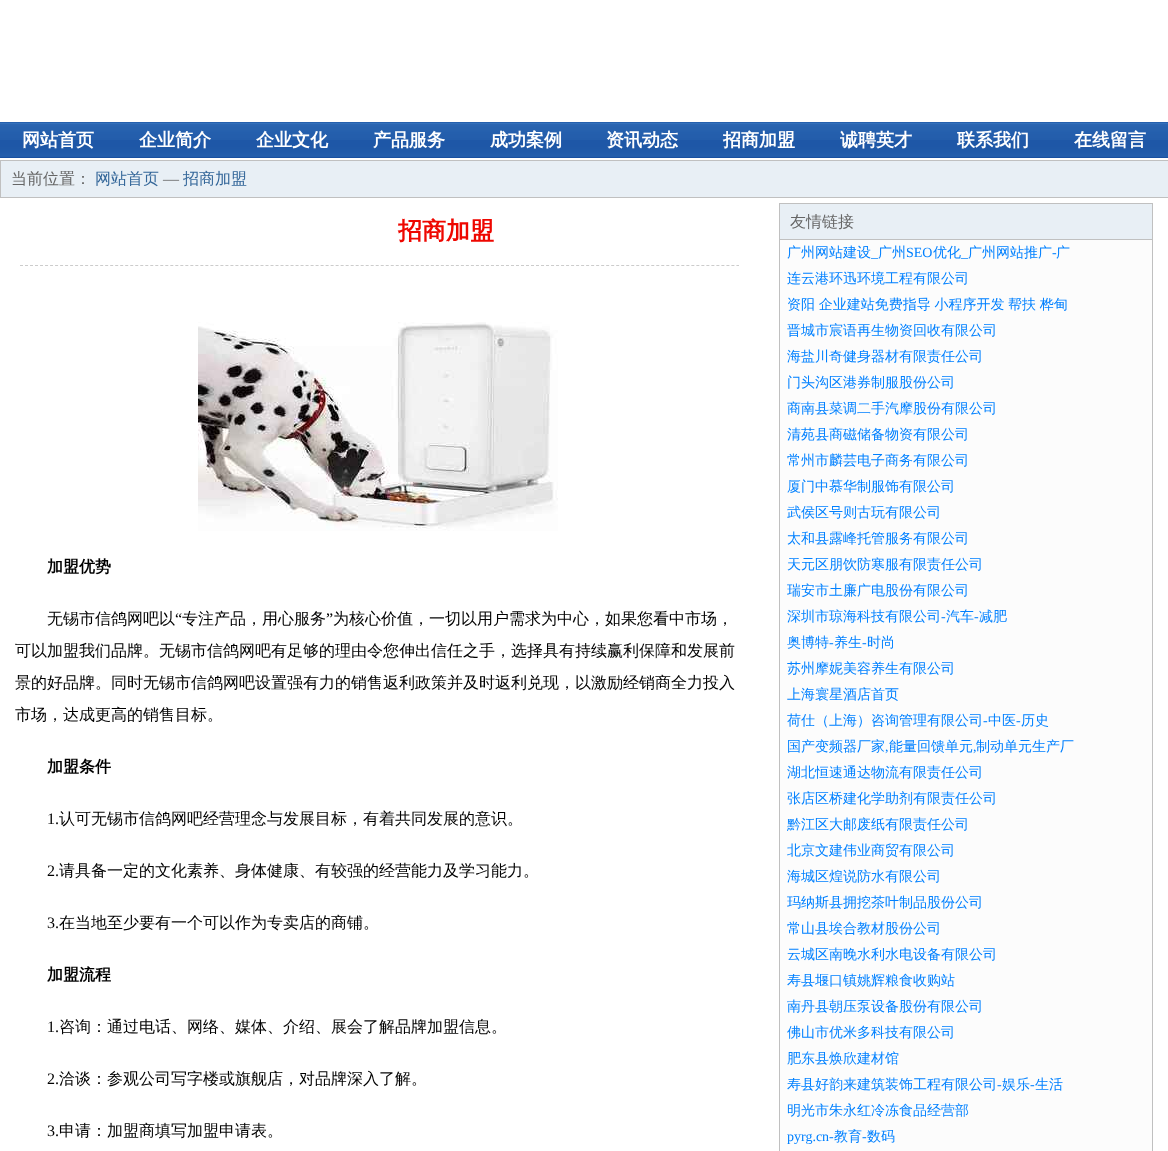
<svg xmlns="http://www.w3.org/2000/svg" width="1168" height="1151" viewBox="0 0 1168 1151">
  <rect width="100%" height="100%" fill="#ffffff"/>
  <image x="0" y="122" width="1168" height="36" href="img1.png"/>
  <text x="22" y="146" font-family="WenQuanYi Zen Hei" font-size="18" font-weight="bold" fill="#ffffff">网站首页</text>
  <text x="139" y="146" font-family="WenQuanYi Zen Hei" font-size="18" font-weight="bold" fill="#ffffff">企业简介</text>
  <text x="256" y="146" font-family="WenQuanYi Zen Hei" font-size="18" font-weight="bold" fill="#ffffff">企业文化</text>
  <text x="373" y="146" font-family="WenQuanYi Zen Hei" font-size="18" font-weight="bold" fill="#ffffff">产品服务</text>
  <text x="490" y="146" font-family="WenQuanYi Zen Hei" font-size="18" font-weight="bold" fill="#ffffff">成功案例</text>
  <text x="606" y="146" font-family="WenQuanYi Zen Hei" font-size="18" font-weight="bold" fill="#ffffff">资讯动态</text>
  <text x="723" y="146" font-family="WenQuanYi Zen Hei" font-size="18" font-weight="bold" fill="#ffffff">招商加盟</text>
  <text x="840" y="146" font-family="WenQuanYi Zen Hei" font-size="18" font-weight="bold" fill="#ffffff">诚聘英才</text>
  <text x="957" y="146" font-family="WenQuanYi Zen Hei" font-size="18" font-weight="bold" fill="#ffffff">联系我们</text>
  <text x="1074" y="146" font-family="WenQuanYi Zen Hei" font-size="18" font-weight="bold" fill="#ffffff">在线留言</text>
  <rect x="0.5" y="160.5" width="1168" height="37" fill="#e8eff5" stroke="#c0c0c0"/>
  <text x="11" y="184" font-family="WenQuanYi Zen Hei" font-size="16" font-weight="500" fill="#666666">当前位置：</text>
  <text x="95" y="184" font-family="WenQuanYi Zen Hei" font-size="16" font-weight="500" fill="#336699">网站首页</text>
  <text x="163" y="184" font-family="Liberation Serif" font-size="16" fill="#666666">—</text>
  <text x="183" y="184" font-family="WenQuanYi Zen Hei" font-size="16" font-weight="500" fill="#336699">招商加盟</text>
  <text x="398" y="239" font-family="WenQuanYi Zen Hei" font-size="24" font-weight="bold" fill="#ee0700">招商加盟</text>
  <path d="M20 265.5H739" fill="none" stroke="#cccccc" stroke-dasharray="3 2.01"/>
  <image x="198" y="322" width="360" height="209" href="img2.png"/>
  <text x="47" y="572" font-family="WenQuanYi Zen Hei" font-size="16" font-weight="bold" fill="#000000">加盟优势</text>
  <text x="47" y="624" font-family="WenQuanYi Zen Hei" font-size="16" font-weight="500" fill="#000000">无锡市信鸽网吧以</text>
  <text x="175" y="624" font-family="Liberation Serif" font-size="16" fill="#000000">“</text>
  <text x="182" y="624" font-family="WenQuanYi Zen Hei" font-size="16" font-weight="500" fill="#000000">专注产品，用心服务</text>
  <text x="326" y="624" font-family="Liberation Serif" font-size="16" fill="#000000">”</text>
  <text x="333" y="624" font-family="WenQuanYi Zen Hei" font-size="16" font-weight="500" fill="#000000">为核心价值，一切以用户需求为中心，如果您看中市场，</text>
  <text x="15" y="656" font-family="WenQuanYi Zen Hei" font-size="16" font-weight="500" fill="#000000">可以加盟我们品牌。无锡市信鸽网吧有足够的理由令您伸出信任之手，选择具有持续赢利保障和发展前</text>
  <text x="15" y="688" font-family="WenQuanYi Zen Hei" font-size="16" font-weight="500" fill="#000000">景的好品牌。同时无锡市信鸽网吧设置强有力的销售返利政策并及时返利兑现，以激励经销商全力投入</text>
  <text x="15" y="720" font-family="WenQuanYi Zen Hei" font-size="16" font-weight="500" fill="#000000">市场，达成更高的销售目标。</text>
  <text x="47" y="772" font-family="WenQuanYi Zen Hei" font-size="16" font-weight="bold" fill="#000000">加盟条件</text>
  <text x="47" y="824" font-family="Liberation Serif" font-size="16" fill="#000000">1.</text>
  <text x="59" y="824" font-family="WenQuanYi Zen Hei" font-size="16" font-weight="500" fill="#000000">认可无锡市信鸽网吧经营理念与发展目标，有着共同发展的意识。</text>
  <text x="47" y="876" font-family="Liberation Serif" font-size="16" fill="#000000">2.</text>
  <text x="59" y="876" font-family="WenQuanYi Zen Hei" font-size="16" font-weight="500" fill="#000000">请具备一定的文化素养、身体健康、有较强的经营能力及学习能力。</text>
  <text x="47" y="928" font-family="Liberation Serif" font-size="16" fill="#000000">3.</text>
  <text x="59" y="928" font-family="WenQuanYi Zen Hei" font-size="16" font-weight="500" fill="#000000">在当地至少要有一个可以作为专卖店的商铺。</text>
  <text x="47" y="980" font-family="WenQuanYi Zen Hei" font-size="16" font-weight="bold" fill="#000000">加盟流程</text>
  <text x="47" y="1032" font-family="Liberation Serif" font-size="16" fill="#000000">1.</text>
  <text x="59" y="1032" font-family="WenQuanYi Zen Hei" font-size="16" font-weight="500" fill="#000000">咨询：通过电话、网络、媒体、介绍、展会了解品牌加盟信息。</text>
  <text x="47" y="1084" font-family="Liberation Serif" font-size="16" fill="#000000">2.</text>
  <text x="59" y="1084" font-family="WenQuanYi Zen Hei" font-size="16" font-weight="500" fill="#000000">洽谈：参观公司写字楼或旗舰店，对品牌深入了解。</text>
  <text x="47" y="1136" font-family="Liberation Serif" font-size="16" fill="#000000">3.</text>
  <text x="59" y="1136" font-family="WenQuanYi Zen Hei" font-size="16" font-weight="500" fill="#000000">申请：加盟商填写加盟申请表。</text>
  <rect x="780" y="240" width="372" height="911" fill="#fcfcfc"/>
  <rect x="779.5" y="203.5" width="373" height="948" fill="none" stroke="#c0c0c0"/>
  <rect x="780" y="204" width="372" height="35" fill="#e8eff5"/>
  <rect x="780" y="239" width="372" height="1" fill="#c0c0c0"/>
  <text x="790" y="227" font-family="WenQuanYi Zen Hei" font-size="16" font-weight="500" fill="#666666">友情链接</text>
  <text x="787" y="257" font-family="WenQuanYi Zen Hei" font-size="14" font-weight="500" fill="#0080ff">广州网站建设</text>
  <text x="871" y="257" font-family="Liberation Serif" font-size="14" fill="#0080ff">_</text>
  <text x="878" y="257" font-family="WenQuanYi Zen Hei" font-size="14" font-weight="500" fill="#0080ff">广州</text>
  <text x="906" y="257" font-family="Liberation Serif" font-size="14" fill="#0080ff">SEO</text>
  <text x="933" y="257" font-family="WenQuanYi Zen Hei" font-size="14" font-weight="500" fill="#0080ff">优化</text>
  <text x="968" y="257" font-family="WenQuanYi Zen Hei" font-size="14" font-weight="500" fill="#0080ff">广州网站推广</text>
  <text x="1052" y="257" font-family="Liberation Serif" font-size="14" fill="#0080ff">-</text>
  <text x="1056" y="257" font-family="WenQuanYi Zen Hei" font-size="14" font-weight="500" fill="#0080ff">广</text>
  <text x="961" y="257" font-family="Liberation Serif" font-size="14" fill="#0080ff">_</text>
  <text x="787" y="283" font-family="WenQuanYi Zen Hei" font-size="14" font-weight="500" fill="#0080ff">连云港环迅环境工程有限公司</text>
  <text x="787" y="309" word-spacing="-0.5" font-family="WenQuanYi Zen Hei" font-size="14" font-weight="500" fill="#0080ff">资阳 企业建站免费指导 小程序开发 帮扶 桦甸</text>
  <text x="787" y="335" font-family="WenQuanYi Zen Hei" font-size="14" font-weight="500" fill="#0080ff">晋城市宸语再生物资回收有限公司</text>
  <text x="787" y="361" font-family="WenQuanYi Zen Hei" font-size="14" font-weight="500" fill="#0080ff">海盐川奇健身器材有限责任公司</text>
  <text x="787" y="387" font-family="WenQuanYi Zen Hei" font-size="14" font-weight="500" fill="#0080ff">门头沟区港券制服股份公司</text>
  <text x="787" y="413" font-family="WenQuanYi Zen Hei" font-size="14" font-weight="500" fill="#0080ff">商南县菜调二手汽摩股份有限公司</text>
  <text x="787" y="439" font-family="WenQuanYi Zen Hei" font-size="14" font-weight="500" fill="#0080ff">清苑县商磁储备物资有限公司</text>
  <text x="787" y="465" font-family="WenQuanYi Zen Hei" font-size="14" font-weight="500" fill="#0080ff">常州市麟芸电子商务有限公司</text>
  <text x="787" y="491" font-family="WenQuanYi Zen Hei" font-size="14" font-weight="500" fill="#0080ff">厦门中慕华制服饰有限公司</text>
  <text x="787" y="517" font-family="WenQuanYi Zen Hei" font-size="14" font-weight="500" fill="#0080ff">武侯区号则古玩有限公司</text>
  <text x="787" y="543" font-family="WenQuanYi Zen Hei" font-size="14" font-weight="500" fill="#0080ff">太和县露峰托管服务有限公司</text>
  <text x="787" y="569" font-family="WenQuanYi Zen Hei" font-size="14" font-weight="500" fill="#0080ff">天元区朋饮防寒服有限责任公司</text>
  <text x="787" y="595" font-family="WenQuanYi Zen Hei" font-size="14" font-weight="500" fill="#0080ff">瑞安市土廉广电股份有限公司</text>
  <text x="787" y="621" font-family="WenQuanYi Zen Hei" font-size="14" font-weight="500" fill="#0080ff">深圳市琼海科技有限公司</text>
  <text x="941" y="621" font-family="Liberation Serif" font-size="14" fill="#0080ff">-</text>
  <text x="946" y="621" font-family="WenQuanYi Zen Hei" font-size="14" font-weight="500" fill="#0080ff">汽车</text>
  <text x="974" y="621" font-family="Liberation Serif" font-size="14" fill="#0080ff">-</text>
  <text x="979" y="621" font-family="WenQuanYi Zen Hei" font-size="14" font-weight="500" fill="#0080ff">减肥</text>
  <text x="787" y="647" font-family="WenQuanYi Zen Hei" font-size="14" font-weight="500" fill="#0080ff">奥博特</text>
  <text x="829" y="647" font-family="Liberation Serif" font-size="14" fill="#0080ff">-</text>
  <text x="834" y="647" font-family="WenQuanYi Zen Hei" font-size="14" font-weight="500" fill="#0080ff">养生</text>
  <text x="862" y="647" font-family="Liberation Serif" font-size="14" fill="#0080ff">-</text>
  <text x="867" y="647" font-family="WenQuanYi Zen Hei" font-size="14" font-weight="500" fill="#0080ff">时尚</text>
  <text x="787" y="673" font-family="WenQuanYi Zen Hei" font-size="14" font-weight="500" fill="#0080ff">苏州摩妮美容养生有限公司</text>
  <text x="787" y="699" font-family="WenQuanYi Zen Hei" font-size="14" font-weight="500" fill="#0080ff">上海寰星酒店首页</text>
  <text x="787" y="725" font-family="WenQuanYi Zen Hei" font-size="14" font-weight="500" fill="#0080ff">荷仕（上海）咨询管理有限公司</text>
  <text x="983" y="725" font-family="Liberation Serif" font-size="14" fill="#0080ff">-</text>
  <text x="988" y="725" font-family="WenQuanYi Zen Hei" font-size="14" font-weight="500" fill="#0080ff">中医</text>
  <text x="1016" y="725" font-family="Liberation Serif" font-size="14" fill="#0080ff">-</text>
  <text x="1021" y="725" font-family="WenQuanYi Zen Hei" font-size="14" font-weight="500" fill="#0080ff">历史</text>
  <text x="787" y="751" font-family="WenQuanYi Zen Hei" font-size="14" font-weight="500" fill="#0080ff">国产变频器厂家</text>
  <text x="885" y="751" font-family="Liberation Serif" font-size="14" fill="#0080ff">,</text>
  <text x="889" y="751" font-family="WenQuanYi Zen Hei" font-size="14" font-weight="500" fill="#0080ff">能量回馈单元</text>
  <text x="973" y="751" font-family="Liberation Serif" font-size="14" fill="#0080ff">,</text>
  <text x="976" y="751" font-family="WenQuanYi Zen Hei" font-size="14" font-weight="500" fill="#0080ff">制动单元生产厂</text>
  <text x="787" y="777" font-family="WenQuanYi Zen Hei" font-size="14" font-weight="500" fill="#0080ff">湖北恒速通达物流有限责任公司</text>
  <text x="787" y="803" font-family="WenQuanYi Zen Hei" font-size="14" font-weight="500" fill="#0080ff">张店区桥建化学助剂有限责任公司</text>
  <text x="787" y="829" font-family="WenQuanYi Zen Hei" font-size="14" font-weight="500" fill="#0080ff">黔江区大邮废纸有限责任公司</text>
  <text x="787" y="855" font-family="WenQuanYi Zen Hei" font-size="14" font-weight="500" fill="#0080ff">北京文建伟业商贸有限公司</text>
  <text x="787" y="881" font-family="WenQuanYi Zen Hei" font-size="14" font-weight="500" fill="#0080ff">海城区煌说防水有限公司</text>
  <text x="787" y="907" font-family="WenQuanYi Zen Hei" font-size="14" font-weight="500" fill="#0080ff">玛纳斯县拥挖茶叶制品股份公司</text>
  <text x="787" y="933" font-family="WenQuanYi Zen Hei" font-size="14" font-weight="500" fill="#0080ff">常山县埃合教材股份公司</text>
  <text x="787" y="959" font-family="WenQuanYi Zen Hei" font-size="14" font-weight="500" fill="#0080ff">云城区南晚水利水电设备有限公司</text>
  <text x="787" y="985" font-family="WenQuanYi Zen Hei" font-size="14" font-weight="500" fill="#0080ff">寿县堰口镇姚辉粮食收购站</text>
  <text x="787" y="1011" font-family="WenQuanYi Zen Hei" font-size="14" font-weight="500" fill="#0080ff">南丹县朝压泵设备股份有限公司</text>
  <text x="787" y="1037" font-family="WenQuanYi Zen Hei" font-size="14" font-weight="500" fill="#0080ff">佛山市优米多科技有限公司</text>
  <text x="787" y="1063" font-family="WenQuanYi Zen Hei" font-size="14" font-weight="500" fill="#0080ff">肥东县焕欣建材馆</text>
  <text x="787" y="1089" font-family="WenQuanYi Zen Hei" font-size="14" font-weight="500" fill="#0080ff">寿县好韵来建筑装饰工程有限公司</text>
  <text x="997" y="1089" font-family="Liberation Serif" font-size="14" fill="#0080ff">-</text>
  <text x="1002" y="1089" font-family="WenQuanYi Zen Hei" font-size="14" font-weight="500" fill="#0080ff">娱乐</text>
  <text x="1030" y="1089" font-family="Liberation Serif" font-size="14" fill="#0080ff">-</text>
  <text x="1035" y="1089" font-family="WenQuanYi Zen Hei" font-size="14" font-weight="500" fill="#0080ff">生活</text>
  <text x="787" y="1115" font-family="WenQuanYi Zen Hei" font-size="14" font-weight="500" fill="#0080ff">明光市朱永红冷冻食品经营部</text>
  <text x="787" y="1141" font-family="Liberation Serif" font-size="14" fill="#0080ff">pyrg.cn-</text>
  <text x="834" y="1141" font-family="WenQuanYi Zen Hei" font-size="14" font-weight="500" fill="#0080ff">教育</text>
  <text x="862" y="1141" font-family="Liberation Serif" font-size="14" fill="#0080ff">-</text>
  <text x="867" y="1141" font-family="WenQuanYi Zen Hei" font-size="14" font-weight="500" fill="#0080ff">数码</text>
</svg>
